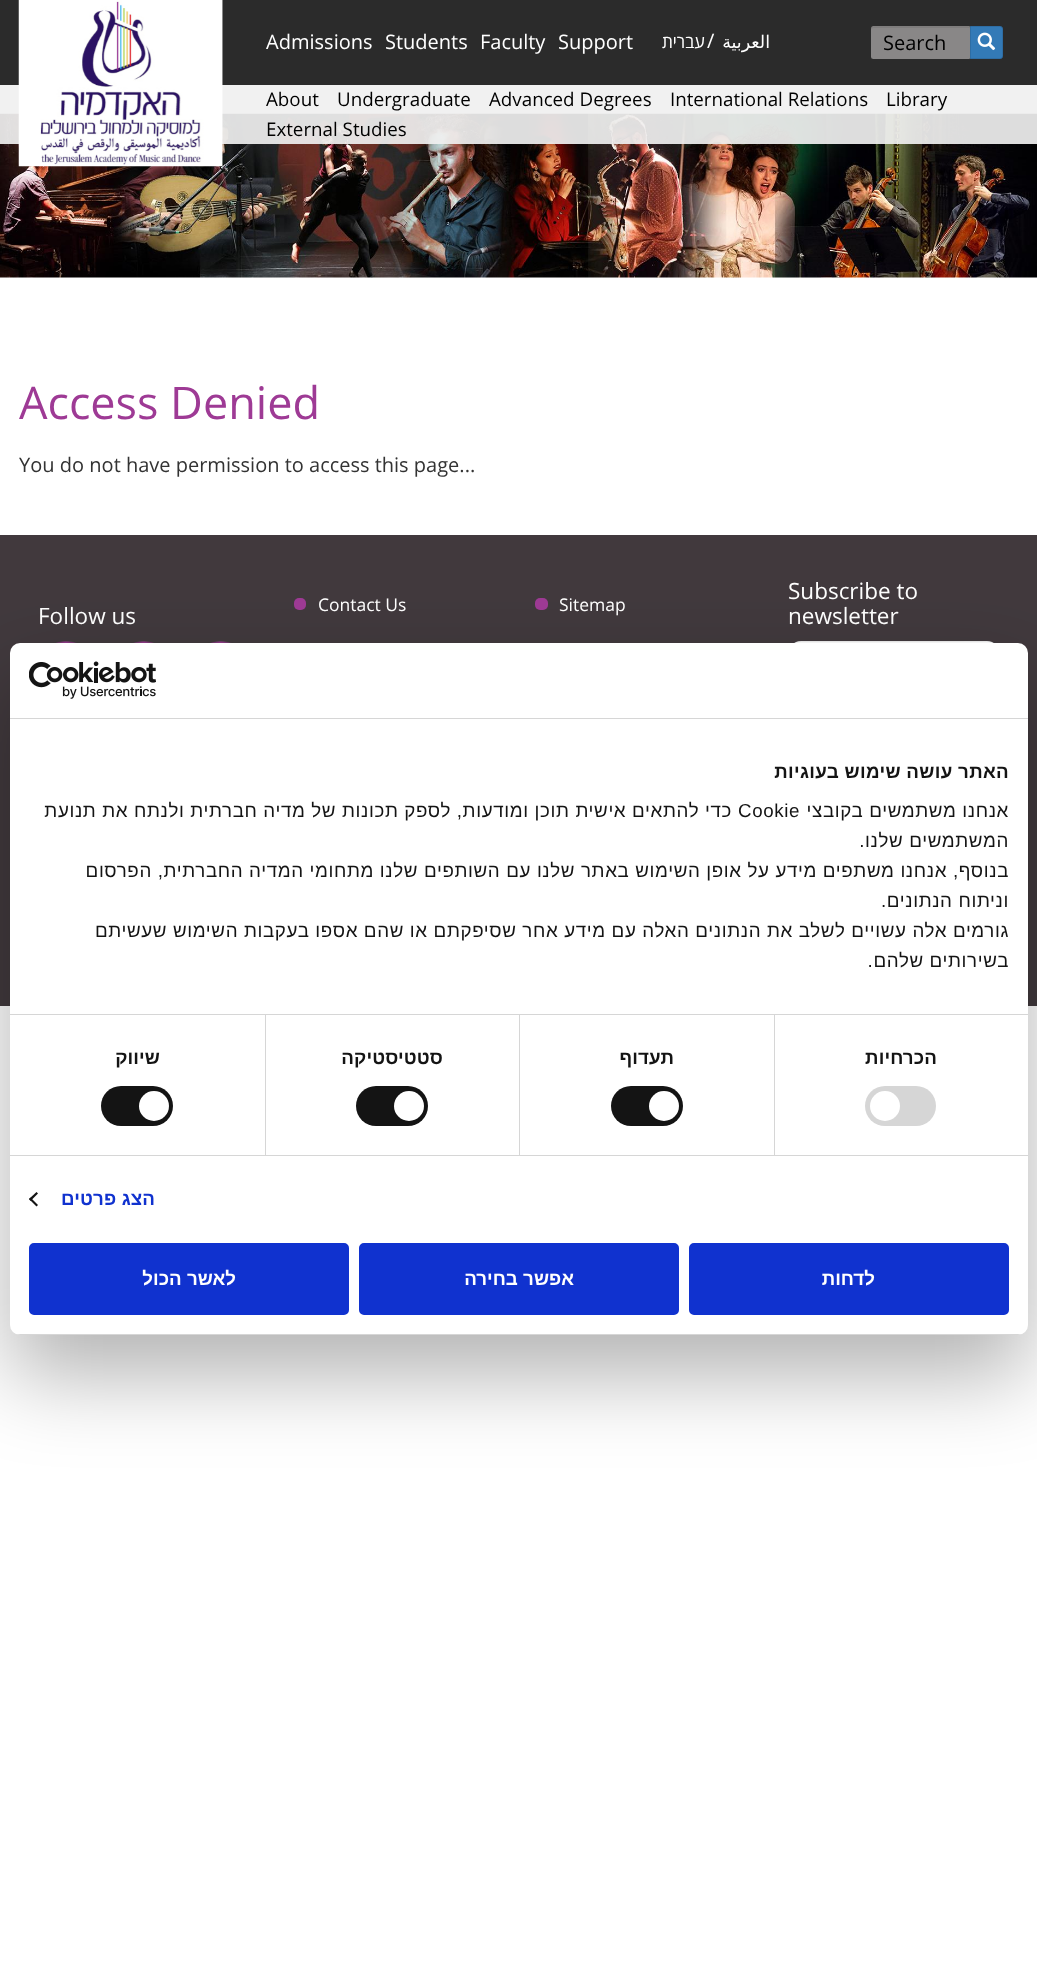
<svg xmlns="http://www.w3.org/2000/svg" width="1037" height="1977" viewBox="0 0 1037 1977">
  <defs>
    <filter id="blur1" x="-50%" y="-200%" width="200%" height="500%"><feGaussianBlur stdDeviation="42.5"/></filter>
    <clipPath id="clip1"><rect x="10" y="643" width="1018" height="692" rx="10"/></clipPath>
  </defs>
  <rect width="100%" height="100%" fill="#ffffff"/>
  <rect x="0" y="0" width="1037" height="85" fill="#2b2b2b"/>
  <rect x="871" y="26" width="100" height="33" rx="2.5" fill="#898787"/>
  <path d="M874 28H969C970 28 971 29 971 30V28C971 27 970 26 968 26H874C872 26 871 27 871 28V30C871 29 872 28 874 28Z" fill="#000000" fill-opacity="0.07"/>
  <path d="M970.5 26.5H1000.5C1001.5 26.5 1002.5 27.5 1002.5 28.5V56.5C1002.5 57.5 1001.5 58.5 1000.5 58.5H970.5Z" fill="#337ab7" stroke="#2e6da4"/>
  <image x="977" y="32" width="19" height="19" href="img1.png"/>
  <text x="883" y="50" font-family="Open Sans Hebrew" font-size="20" fill="#000000">Search</text>
  <text x="770" y="48" font-family="DejaVu Sans" font-size="17.5" direction="rtl" fill="#ffffff">العربية</text>
  <text x="707" y="48" font-family="Open Sans Hebrew" font-size="20" fill="#ffffff">/</text>
  <text x="705" y="48" font-family="Open Sans Hebrew" font-size="17.5" direction="rtl" fill="#ffffff">עברית</text>
  <text x="558" y="49" font-family="Open Sans Hebrew" font-size="20" fill="#ffffff">Support</text>
  <text x="480" y="49" font-family="Open Sans Hebrew" font-size="20" fill="#ffffff">Faculty</text>
  <text x="385" y="49" font-family="Open Sans Hebrew" font-size="20" fill="#ffffff">Students</text>
  <text x="266" y="49" font-family="Open Sans Hebrew" font-size="20" fill="#ffffff">Admissions</text>
  <image x="0" y="113" width="1037" height="165" href="img3.png"/>
  <rect x="0" y="85" width="1037" height="59" fill="#f0f0f0" fill-opacity="0.92"/>
  <image x="18" y="0" width="205" height="167" href="img2.png"/>
  <text x="886" y="106" font-family="Open Sans Hebrew" font-size="18.75" fill="#000000">Library</text>
  <text x="670" y="106" font-family="Open Sans Hebrew" font-size="18.75" fill="#000000">International Relations</text>
  <text x="489" y="106" font-family="Open Sans Hebrew" font-size="18.75" fill="#000000">Advanced Degrees</text>
  <text x="337" y="106" font-family="Open Sans Hebrew" font-size="18.75" fill="#000000">Undergraduate</text>
  <text x="266" y="106" font-family="Open Sans Hebrew" font-size="18.75" fill="#000000">About</text>
  <text x="266" y="136" font-family="Open Sans Hebrew" font-size="18.75" fill="#000000">External Studies</text>
  <text x="19" y="419" font-family="Open Sans Hebrew" font-size="45" fill="#9e3a95">Access Denied</text>
  <text x="19" y="472" font-family="Open Sans Hebrew" font-size="20" fill="#333333">You do not have permission to access this page...</text>
  <rect x="0" y="535" width="1037" height="471" fill="#41393d"/>
  <text x="788" y="599" font-family="Open Sans Hebrew" font-size="22.5" fill="#ffffff">Subscribe to</text>
  <text x="788" y="624" font-family="Open Sans Hebrew" font-size="22.5" fill="#ffffff">newsletter</text>
  <rect x="788" y="641" width="212" height="38" rx="13" fill="#ffffff"/>
  <path d="M800 642H988C994 642 1000 648 1000 655V654C1000 647 994 641 987 641H801C794 641 788 647 788 654V655C788 648 793 642 800 642Z" fill="#000000" fill-opacity="0.07"/>
  <text x="559" y="611" font-family="Open Sans Hebrew" font-size="17.5" fill="#ffffff">Sitemap</text>
  <rect x="535" y="598" width="13" height="12" rx="5" fill="#9e3a95"/>
  <text x="318" y="611" font-family="Open Sans Hebrew" font-size="17.5" fill="#ffffff">Contact Us</text>
  <rect x="294" y="598" width="12" height="12" rx="5" fill="#9e3a95"/>
  <text x="38" y="624" font-family="Open Sans Hebrew" font-size="22.5" fill="#ffffff">Follow us</text>
  <image x="208" y="641" width="25" height="2" href="img4.png"/>
  <image x="131" y="641" width="24" height="2" href="img5.png"/>
  <image x="53" y="641" width="25" height="2" href="img6.png"/>
  <rect x="10" y="683" width="1018" height="692" rx="10" fill="#000000" fill-opacity="0.3" filter="url(#blur1)"/>
  <rect x="10" y="643" width="1018" height="692" rx="10" fill="#ffffff"/>
  <rect x="10" y="718" width="1018" height="1" fill="#d6d6d6"/>
  <image x="29" y="661" width="127" height="38" href="img7.png"/>
  <rect x="10" y="1014" width="1018" height="1" fill="#d6d6d6"/>
  <text x="1009" y="778" font-family="Liberation Sans" font-size="18.75" font-weight="bold" letter-spacing="0.3" direction="rtl" fill="#141414">האתר עושה שימוש בעוגיות</text>
  <text x="1009" y="817" font-family="Liberation Sans" font-size="18.75" letter-spacing="0.62" direction="rtl" fill="#141414">אנחנו משתמשים בקובצי</text>
  <text x="738" y="817" font-family="Liberation Sans" font-size="18.75" letter-spacing="0.62" fill="#141414">Cookie</text>
  <text x="732" y="817" font-family="Liberation Sans" font-size="18.75" letter-spacing="0.62" direction="rtl" fill="#141414">כדי להתאים אישית תוכן ומודעות, לספק תכונות של מדיה חברתית ולנתח את תנועת</text>
  <text x="1009" y="847" font-family="Liberation Sans" font-size="18.75" letter-spacing="0.62" direction="rtl" fill="#141414">המשתמשים שלנו.</text>
  <text x="1009" y="877" font-family="Liberation Sans" font-size="18.75" letter-spacing="0.62" direction="rtl" fill="#141414">בנוסף, אנחנו משתפים מידע על אופן השימוש באתר שלנו עם השותפים שלנו מתחומי המדיה החברתית, הפרסום</text>
  <text x="1009" y="907" font-family="Liberation Sans" font-size="18.75" letter-spacing="0.62" direction="rtl" fill="#141414">וניתוח הנתונים.</text>
  <text x="1009" y="937" font-family="Liberation Sans" font-size="18.75" letter-spacing="0.62" direction="rtl" fill="#141414">גורמים אלה עשויים לשלב את הנתונים האלה עם מידע אחר שסיפקתם או שהם אספו בעקבות השימוש שעשיתם</text>
  <text x="1009" y="967" font-family="Liberation Sans" font-size="18.75" letter-spacing="0.62" direction="rtl" fill="#141414">בשירותים שלהם.</text>
  <rect x="10" y="1155" width="1018" height="1" fill="#d6d6d6"/>
  <rect x="774" y="1015" width="1" height="140" fill="#d6d6d6"/>
  <text x="937" y="1064" font-family="Liberation Sans" font-size="18.75" font-weight="bold" letter-spacing="0.1" direction="rtl" fill="#141414">הכרחיות</text>
  <rect x="865" y="1086" width="71" height="40" rx="20" fill="#d6d6d6"/>
  <circle cx="885" cy="1106" r="15" fill="#ffffff"/>
  <rect x="519" y="1015" width="1" height="140" fill="#d6d6d6"/>
  <text x="674" y="1064" font-family="Liberation Sans" font-size="18.75" font-weight="bold" letter-spacing="0.1" direction="rtl" fill="#141414">תעדוף</text>
  <rect x="611" y="1086" width="72" height="40" rx="20" fill="#141414"/>
  <circle cx="664" cy="1106" r="15" fill="#ffffff"/>
  <rect x="265" y="1015" width="1" height="140" fill="#d6d6d6"/>
  <text x="443" y="1064" font-family="Liberation Sans" font-size="18.75" font-weight="bold" letter-spacing="0.1" direction="rtl" fill="#141414">סטטיסטיקה</text>
  <rect x="356" y="1086" width="72" height="40" rx="20" fill="#141414"/>
  <circle cx="409" cy="1106" r="15" fill="#ffffff"/>
  <text x="160" y="1064" font-family="Liberation Sans" font-size="18.75" font-weight="bold" letter-spacing="0.1" direction="rtl" fill="#141414">שיווק</text>
  <rect x="101" y="1086" width="72" height="40" rx="20" fill="#141414"/>
  <circle cx="154" cy="1106" r="15" fill="#ffffff"/>
  <text x="155" y="1205" font-family="Liberation Sans" font-size="18.75" font-weight="bold" letter-spacing="0.1" direction="rtl" fill="#1032cf">הצג פרטים</text>
  <path d="M36.5 1206.5L29 1199L30.5 1197.5L38 1205Z" fill="#141414"/>
  <path d="M30.5 1201L29 1199L36.5 1192L38 1193.5Z" fill="#141414"/>
  <g clip-path="url(#clip1)">
    <rect x="10" y="1334" width="1018" height="1" fill="#d6d6d6"/>
  </g>
  <rect x="690.5" y="1244.5" width="317" height="69" rx="3.5" fill="#1032cf" stroke="#1032cf" stroke-width="3"/>
  <text x="875" y="1285" font-family="Liberation Sans" font-size="18.75" font-weight="bold" direction="rtl" fill="#ffffff">לדחות</text>
  <rect x="360.5" y="1244.5" width="317" height="69" rx="3.5" fill="#1032cf" stroke="#1032cf" stroke-width="3"/>
  <text x="574" y="1285" font-family="Liberation Sans" font-size="18.75" font-weight="bold" direction="rtl" fill="#ffffff">אפשר בחירה</text>
  <rect x="30.5" y="1244.5" width="317" height="69" rx="3.5" fill="#1032cf" stroke="#1032cf" stroke-width="3"/>
  <text x="236" y="1285" font-family="Liberation Sans" font-size="18.75" font-weight="bold" direction="rtl" fill="#ffffff">לאשר הכול</text>
</svg>
